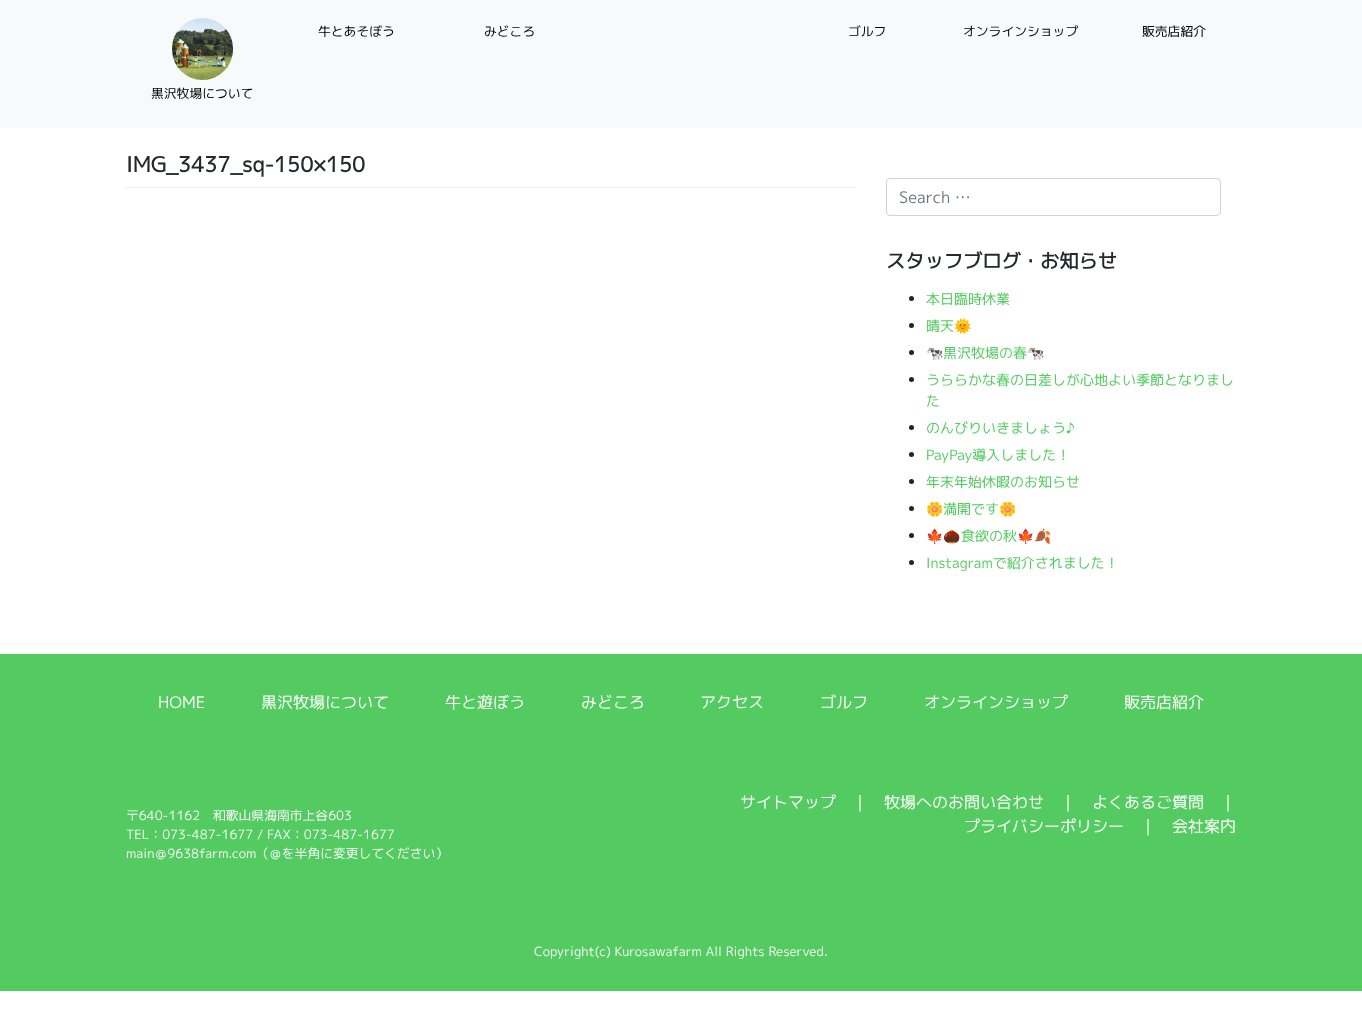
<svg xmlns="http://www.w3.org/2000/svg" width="1362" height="1020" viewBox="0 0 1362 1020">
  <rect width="100%" height="100%" fill="#ffffff"/>
  <rect x="0" y="0" width="1362" height="128" fill="#f8f9fa"/>
  <text x="318" y="36" font-family="'M PLUS 1p'" font-size="12.8" fill="#000000">牛とあそぼう</text>
  <text x="484" y="36" font-family="'M PLUS 1p'" font-size="12.8" fill="#000000">みどころ</text>
  <image x="172" y="18" width="61" height="62" href="img1.png"/>
  <text x="151" y="98" font-family="'M PLUS 1p'" font-size="12.8" fill="#000000">黒沢牧場について</text>
  <text x="848" y="36" font-family="'M PLUS 1p'" font-size="12.8" fill="#000000">ゴルフ</text>
  <text x="963" y="36" font-family="'M PLUS 1p'" font-size="12.8" fill="#000000">オンラインショップ</text>
  <text x="1142" y="36" font-family="'M PLUS 1p'" font-size="12.8" fill="#000000">販売店紹介</text>
  <rect x="126" y="187" width="730" height="1" fill="#eaecef"/>
  <text x="126" y="172" font-family="'M PLUS 1p'" font-size="21" font-weight="bold" fill="#24292e">IMG_3437_sq-150×150</text>
  <rect x="886.5" y="178.5" width="334" height="37" rx="3.5" fill="none" stroke="#ced4da"/>
  <text x="899" y="203" font-family="'M PLUS 1p'" font-size="16" fill="#6c757d">Search …</text>
  <text x="886" y="268" font-family="'M PLUS 1p'" font-size="19.25" font-weight="bold" fill="#24292e">スタッフブログ・お知らせ</text>
  <circle cx="911.5" cy="298.5" r="2.5" fill="#212529"/>
  <text x="926" y="304" font-family="'M PLUS 1p'" font-size="14" fill="#53cb60">本日臨時休業</text>
  <circle cx="911.5" cy="325.5" r="2.5" fill="#212529"/>
  <text x="926" y="331" font-family="'M PLUS 1p'" font-size="14" fill="#53cb60">晴天</text>
  <text x="954" y="331" font-family="Noto Color Emoji" font-size="14" fill="#53cb60">🌞</text>
  <circle cx="911.5" cy="352.5" r="2.5" fill="#212529"/>
  <text x="926" y="358" font-family="Noto Color Emoji" font-size="14" fill="#53cb60">🐄</text>
  <text x="943" y="358" font-family="'M PLUS 1p'" font-size="14" fill="#53cb60">黒沢牧場の春</text>
  <text x="1027" y="358" font-family="Noto Color Emoji" font-size="14" fill="#53cb60">🐄</text>
  <circle cx="911.5" cy="379.5" r="2.5" fill="#212529"/>
  <text x="926" y="385" font-family="'M PLUS 1p'" font-size="14" fill="#53cb60">うららかな春の日差しが心地よい季節となりまし</text>
  <text x="926" y="406" font-family="'M PLUS 1p'" font-size="14" fill="#53cb60">た</text>
  <circle cx="911.5" cy="427.5" r="2.5" fill="#212529"/>
  <text x="926" y="433" font-family="'M PLUS 1p'" font-size="14" fill="#53cb60">のんびりいきましょう♪</text>
  <circle cx="911.5" cy="454.5" r="2.5" fill="#212529"/>
  <text x="926" y="460" font-family="'M PLUS 1p'" font-size="14" fill="#53cb60">PayPay導入しました！</text>
  <circle cx="911.5" cy="481.5" r="2.5" fill="#212529"/>
  <text x="926" y="487" font-family="'M PLUS 1p'" font-size="14" fill="#53cb60">年末年始休暇のお知らせ</text>
  <circle cx="911.5" cy="508.5" r="2.5" fill="#212529"/>
  <text x="926" y="514" font-family="Noto Color Emoji" font-size="14" fill="#53cb60">🌼</text>
  <text x="943" y="514" font-family="'M PLUS 1p'" font-size="14" fill="#53cb60">満開です</text>
  <text x="999" y="514" font-family="Noto Color Emoji" font-size="14" fill="#53cb60">🌼</text>
  <circle cx="911.5" cy="535.5" r="2.5" fill="#212529"/>
  <text x="926" y="541" font-family="Noto Color Emoji" font-size="14" fill="#53cb60">🍁🌰</text>
  <text x="961" y="541" font-family="'M PLUS 1p'" font-size="14" fill="#53cb60">食欲の秋</text>
  <text x="1017" y="541" font-family="Noto Color Emoji" font-size="14" fill="#53cb60">🍁🍂</text>
  <circle cx="911.5" cy="562.5" r="2.5" fill="#212529"/>
  <text x="926" y="568" font-family="'M PLUS 1p'" font-size="14" fill="#53cb60">Instagramで紹介されました！</text>
  <rect x="0" y="654" width="1362" height="337" fill="#53cb60"/>
  <text x="158" y="708" font-family="'M PLUS 1p'" font-size="16" fill="#ffffff">HOME</text>
  <text x="261" y="708" font-family="'M PLUS 1p'" font-size="16" fill="#ffffff">黒沢牧場について</text>
  <text x="445" y="708" font-family="'M PLUS 1p'" font-size="16" fill="#ffffff">牛と遊ぼう</text>
  <text x="581" y="708" font-family="'M PLUS 1p'" font-size="16" fill="#ffffff">みどころ</text>
  <text x="700" y="708" font-family="'M PLUS 1p'" font-size="16" fill="#ffffff">アクセス</text>
  <text x="820" y="708" font-family="'M PLUS 1p'" font-size="16" fill="#ffffff">ゴルフ</text>
  <text x="924" y="708" font-family="'M PLUS 1p'" font-size="16" fill="#ffffff">オンラインショップ</text>
  <text x="1124" y="708" font-family="'M PLUS 1p'" font-size="16" fill="#ffffff">販売店紹介</text>
  <text x="126" y="820" font-family="'M PLUS 1p'" font-size="12.8" fill="#f8f9fa">〒640-1162　和歌山県海南市上谷603</text>
  <text x="126" y="839" font-family="'M PLUS 1p'" font-size="12.8" fill="#f8f9fa">TEL：073-487-1677 / FAX：073-487-1677</text>
  <text x="126" y="858" font-family="'M PLUS 1p'" font-size="12.8" fill="#f8f9fa">main＠9638farm.com（＠を半角に変更してください）</text>
  <text x="740" y="808" font-family="'M PLUS 1p'" font-size="16" fill="#ffffff">サイトマップ</text>
  <text x="852" y="808" font-family="'M PLUS 1p'" font-size="16" fill="#f8f9fa">｜</text>
  <text x="884" y="808" font-family="'M PLUS 1p'" font-size="16" fill="#ffffff">牧場へのお問い合わせ</text>
  <text x="1060" y="808" font-family="'M PLUS 1p'" font-size="16" fill="#f8f9fa">｜</text>
  <text x="1092" y="808" font-family="'M PLUS 1p'" font-size="16" fill="#ffffff">よくあるご質問</text>
  <text x="1220" y="808" font-family="'M PLUS 1p'" font-size="16" fill="#f8f9fa">｜</text>
  <text x="964" y="832" font-family="'M PLUS 1p'" font-size="16" fill="#ffffff">プライバシーポリシー</text>
  <text x="1140" y="832" font-family="'M PLUS 1p'" font-size="16" fill="#f8f9fa">｜</text>
  <text x="1172" y="832" font-family="'M PLUS 1p'" font-size="16" fill="#ffffff">会社案内</text>
  <text x="534" y="956" font-family="'M PLUS 1p'" font-size="12.8" fill="#f8f9fa">Copyright(c) Kurosawafarm All Rights Reserved.</text>
</svg>
